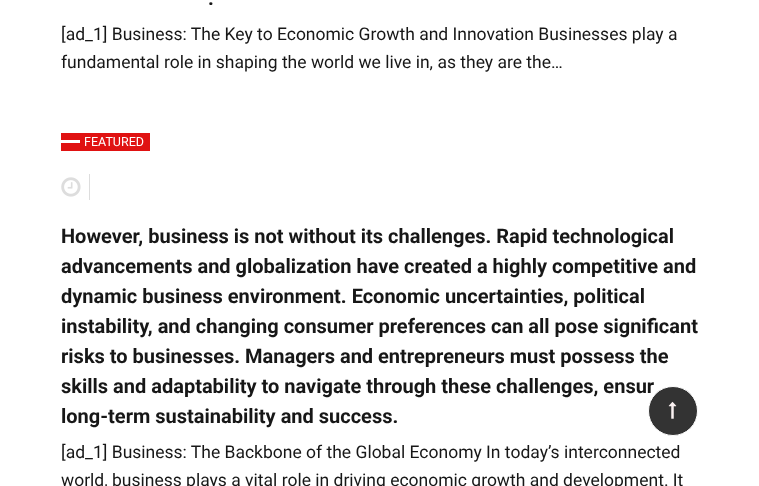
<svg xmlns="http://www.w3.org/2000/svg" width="759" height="486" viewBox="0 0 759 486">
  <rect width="100%" height="100%" fill="#ffffff"/>
  <text x="208" y="5" font-family="Roboto" font-size="20" font-weight="bold" fill="#171717">.</text>
  <text x="61" y="40" font-family="Roboto" font-size="17.5" fill="#171717">[ad_1] Business: The Key to Economic Growth and Innovation Businesses play a</text>
  <text x="61" y="68" font-family="Roboto" font-size="17.5" fill="#171717">fundamental role in shaping the world we live in, as they are the…</text>
  <rect x="61" y="133" width="89" height="18" fill="#e01212"/>
  <rect x="61" y="140" width="19" height="3" fill="#ffffff"/>
  <text x="84" y="146" font-family="Roboto" font-size="12.5" fill="#ffffff">FEATURED</text>
  <rect x="89" y="174" width="1" height="26" fill="#dddddd"/>
  <image x="61" y="177" width="20" height="20" href="img1.png"/>
  <text x="61" y="243" font-family="Roboto" font-size="20" font-weight="bold" fill="#171717">However, business is not without its challenges. Rapid technological</text>
  <text x="61" y="273" font-family="Roboto" font-size="20" font-weight="bold" fill="#171717">advancements and globalization have created a highly competitive and</text>
  <text x="61" y="303" font-family="Roboto" font-size="20" font-weight="bold" fill="#171717">dynamic business environment. Economic uncertainties, political</text>
  <text x="61" y="333" font-family="Roboto" font-size="20" font-weight="bold" fill="#171717">instability, and changing consumer preferences can all pose significant</text>
  <text x="61" y="363" font-family="Roboto" font-size="20" font-weight="bold" fill="#171717">risks to businesses. Managers and entrepreneurs must possess the</text>
  <text x="61" y="393" font-family="Roboto" font-size="20" font-weight="bold" fill="#171717">skills and adaptability to navigate through these challenges, ensur</text>
  <text x="61" y="423" font-family="Roboto" font-size="20" font-weight="bold" fill="#171717">long-term sustainability and success.</text>
  <text x="61" y="458" font-family="Roboto" font-size="17.5" fill="#171717">[ad_1] Business: The Backbone of the Global Economy In today’s interconnected</text>
  <text x="61" y="486" font-family="Roboto" font-size="17.5" fill="#171717">world, business plays a vital role in driving economic growth and development. It</text>
  <circle cx="673" cy="411" r="24.5" fill="#333333" stroke="#ffffff"/>
  <image x="668" y="401" width="9" height="18" href="img2.png"/>
</svg>
